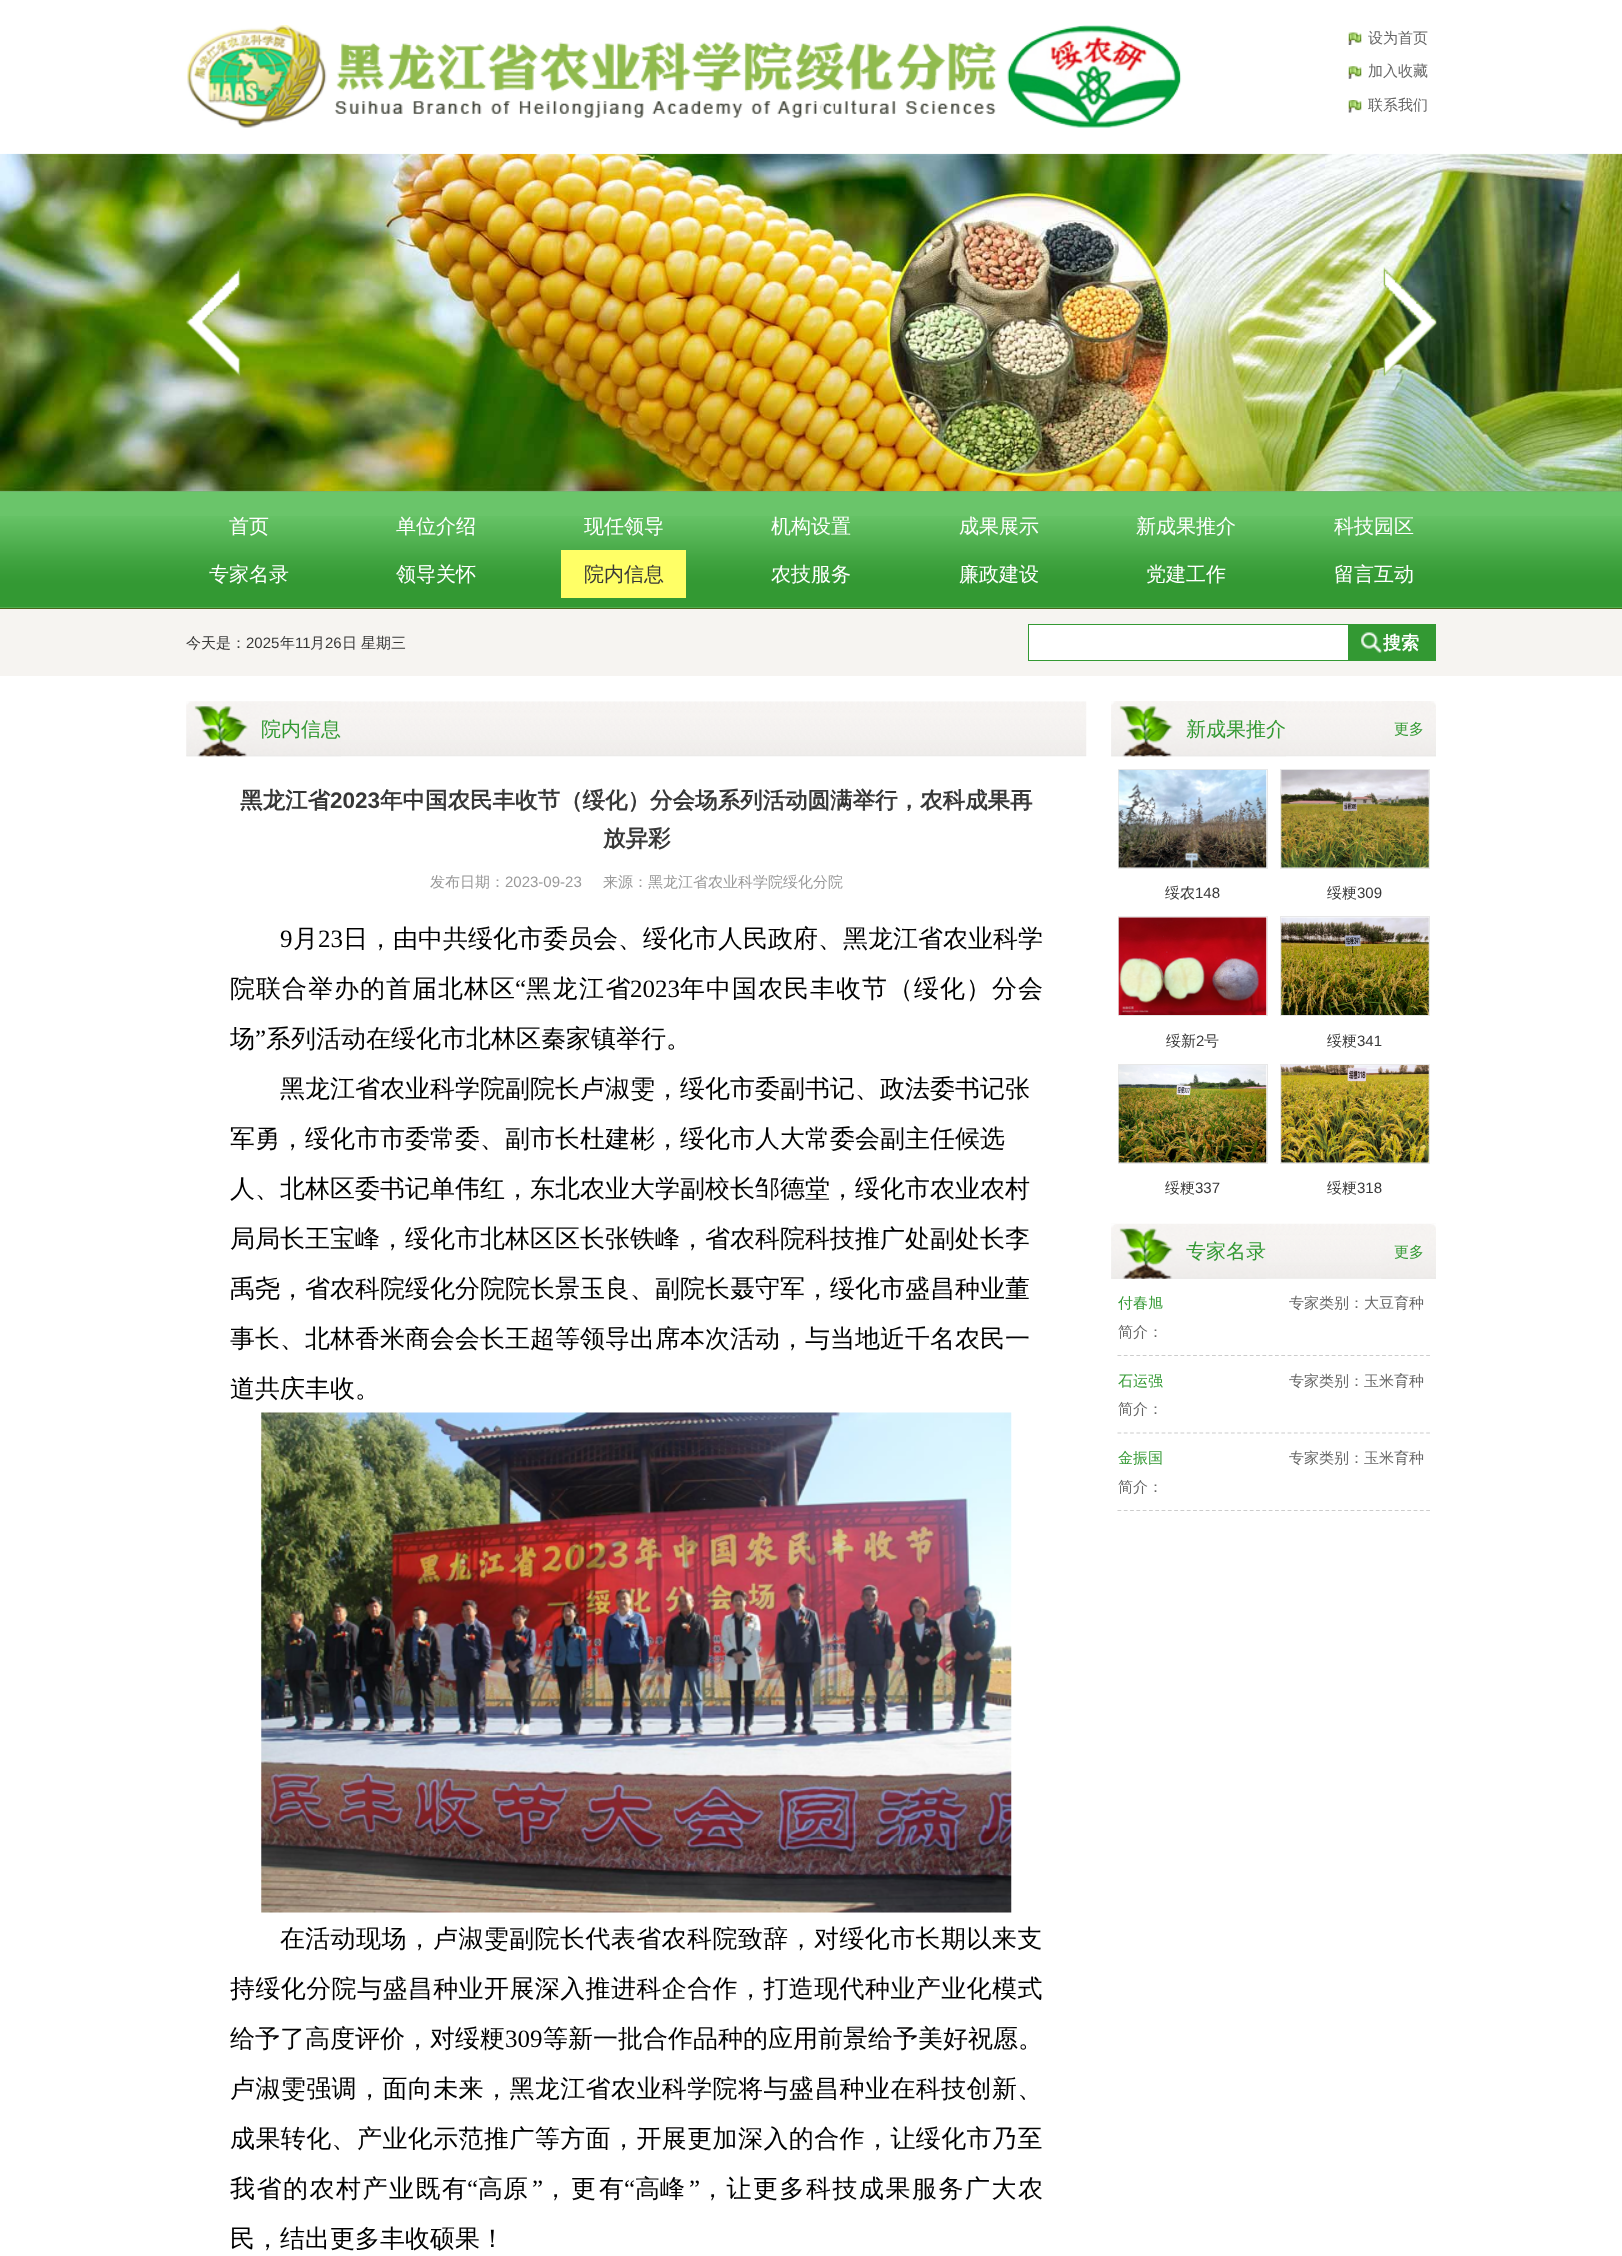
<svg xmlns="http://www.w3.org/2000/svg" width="1622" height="2256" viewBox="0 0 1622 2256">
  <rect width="100%" height="100%" fill="#ffffff"/>
  <image x="187" y="25" width="995" height="103" href="img1.png"/>
  <image x="1348" y="32" width="14" height="13" href="img2.png"/>
  <text x="1368" y="43" font-family="WenQuanYi Zen Hei" font-size="15" font-weight="500" fill="#666666">设为首页</text>
  <image x="1348" y="66" width="14" height="13" href="img3.png"/>
  <text x="1368" y="76" font-family="WenQuanYi Zen Hei" font-size="15" font-weight="500" fill="#666666">加入收藏</text>
  <image x="1348" y="100" width="14" height="13" href="img4.png"/>
  <text x="1368" y="110" font-family="WenQuanYi Zen Hei" font-size="15" font-weight="500" fill="#666666">联系我们</text>
  <rect x="0" y="491" width="1622" height="1" fill="#72b672"/>
  <image x="0" y="153" width="1622" height="339" href="img5.png"/>
  <image x="186" y="267" width="55" height="110" href="img6.png"/>
  <image x="1383" y="267" width="54" height="110" href="img7.png"/>
  <rect x="0" y="492" width="1622" height="116" fill="#6ac56a"/>
  <image x="0" y="516" width="1622" height="92" href="img8.png"/>
  <rect x="0" y="608" width="1622" height="1" fill="#48651b"/>
  <text x="229" y="533" font-family="WenQuanYi Zen Hei" font-size="20" font-weight="500" fill="#ffffff">首页</text>
  <text x="396" y="533" font-family="WenQuanYi Zen Hei" font-size="20" font-weight="500" fill="#ffffff">单位介绍</text>
  <text x="584" y="533" font-family="WenQuanYi Zen Hei" font-size="20" font-weight="500" fill="#ffffff">现任领导</text>
  <text x="771" y="533" font-family="WenQuanYi Zen Hei" font-size="20" font-weight="500" fill="#ffffff">机构设置</text>
  <text x="959" y="533" font-family="WenQuanYi Zen Hei" font-size="20" font-weight="500" fill="#ffffff">成果展示</text>
  <text x="1136" y="533" font-family="WenQuanYi Zen Hei" font-size="20" font-weight="500" fill="#ffffff">新成果推介</text>
  <text x="1334" y="533" font-family="WenQuanYi Zen Hei" font-size="20" font-weight="500" fill="#ffffff">科技园区</text>
  <text x="209" y="581" font-family="WenQuanYi Zen Hei" font-size="20" font-weight="500" fill="#ffffff">专家名录</text>
  <text x="396" y="581" font-family="WenQuanYi Zen Hei" font-size="20" font-weight="500" fill="#ffffff">领导关怀</text>
  <rect x="561" y="550" width="125" height="48" fill="#ffff66"/>
  <text x="584" y="581" font-family="WenQuanYi Zen Hei" font-size="20" font-weight="500" fill="#373737">院内信息</text>
  <text x="771" y="581" font-family="WenQuanYi Zen Hei" font-size="20" font-weight="500" fill="#ffffff">农技服务</text>
  <text x="959" y="581" font-family="WenQuanYi Zen Hei" font-size="20" font-weight="500" fill="#ffffff">廉政建设</text>
  <text x="1146" y="581" font-family="WenQuanYi Zen Hei" font-size="20" font-weight="500" fill="#ffffff">党建工作</text>
  <text x="1334" y="581" font-family="WenQuanYi Zen Hei" font-size="20" font-weight="500" fill="#ffffff">留言互动</text>
  <rect x="0" y="609" width="1622" height="67" fill="#f6f4f1"/>
  <text x="186" y="648" font-family="WenQuanYi Zen Hei" font-size="15" font-weight="500" fill="#373737">今天是：</text>
  <text x="246" y="648" font-family="Liberation Sans" font-size="15" fill="#373737">2025</text>
  <text x="280" y="648" font-family="WenQuanYi Zen Hei" font-size="15" font-weight="500" fill="#373737">年</text>
  <text x="295" y="648" font-family="Liberation Sans" font-size="15" fill="#373737">11</text>
  <text x="310" y="648" font-family="WenQuanYi Zen Hei" font-size="15" font-weight="500" fill="#373737">月</text>
  <text x="325" y="648" font-family="Liberation Sans" font-size="15" fill="#373737">26</text>
  <text x="342" y="648" font-family="WenQuanYi Zen Hei" font-size="15" font-weight="500" fill="#373737">日</text>
  <text x="361" y="648" font-family="WenQuanYi Zen Hei" font-size="15" font-weight="500" fill="#373737">星期三</text>
  <rect x="1028.5" y="624.5" width="320" height="36" fill="#ffffff" stroke="#339933"/>
  <rect x="1349" y="624" width="87" height="37" fill="#339933"/>
  <image x="1361" y="632" width="21" height="21" href="img9.png"/>
  <text x="1383" y="649" font-family="WenQuanYi Zen Hei" font-size="18" font-weight="bold" fill="#ffffff">搜索</text>
  <image x="186" y="701" width="901" height="56" href="img10.png"/>
  <image x="186" y="701" width="155" height="56" href="img11.png"/>
  <text x="261" y="736" font-family="WenQuanYi Zen Hei" font-size="20" font-weight="500" fill="#339933">院内信息</text>
  <text x="240" y="808" font-family="WenQuanYi Zen Hei" font-size="22.5" font-weight="bold" fill="#373737">黑龙江省</text>
  <text x="330" y="808" font-family="Liberation Sans" font-size="22.5" font-weight="bold" fill="#373737">2023</text>
  <text x="380" y="808" font-family="WenQuanYi Zen Hei" font-size="22.5" font-weight="bold" fill="#373737">年中国农民丰收节（绥化）分会场系列活动圆满举行，农科成果再</text>
  <text x="603" y="846" font-family="WenQuanYi Zen Hei" font-size="22.5" font-weight="bold" fill="#373737">放异彩</text>
  <text x="430" y="887" font-family="WenQuanYi Zen Hei" font-size="15" font-weight="500" fill="#999999">发布日期：</text>
  <text x="505" y="887" font-family="Liberation Sans" font-size="15" fill="#999999">2023-09-23</text>
  <text x="603" y="887" font-family="WenQuanYi Zen Hei" font-size="15" font-weight="500" fill="#999999">来源：黑龙江省农业科学院绥化分院</text>
  <text x="280" y="947" font-family="Liberation Serif" font-size="25" fill="#000000">9</text>
  <text x="293" y="947" font-family="WenQuanYi Zen Hei" font-size="25" font-weight="500" fill="#000000">月</text>
  <text x="318" y="947" font-family="Liberation Serif" font-size="25" fill="#000000">23</text>
  <text x="343" y="947" font-family="WenQuanYi Zen Hei" font-size="25" font-weight="500" fill="#000000">日，由中共绥化市委员会、绥化市人民政府、黑龙江省农业科学</text>
  <text x="230" y="997" font-family="WenQuanYi Zen Hei" font-size="25" font-weight="500" letter-spacing="1" fill="#000000">院联合举办的首届北林区</text>
  <text x="515" y="997" font-family="Liberation Serif" font-size="25" fill="#000000">“</text>
  <text x="526" y="997" font-family="WenQuanYi Zen Hei" font-size="25" font-weight="500" letter-spacing="1.5" fill="#000000">黑龙江省</text>
  <text x="630" y="997" font-family="Liberation Serif" font-size="25" fill="#000000">2023</text>
  <text x="680" y="997" font-family="WenQuanYi Zen Hei" font-size="25" font-weight="500" letter-spacing="1" fill="#000000">年中国农民丰收节（绥化）分会</text>
  <text x="230" y="1047" font-family="WenQuanYi Zen Hei" font-size="25" font-weight="500" fill="#000000">场</text>
  <text x="255" y="1047" font-family="Liberation Serif" font-size="25" fill="#000000">”</text>
  <text x="266" y="1047" font-family="WenQuanYi Zen Hei" font-size="25" font-weight="500" fill="#000000">系列活动在绥化市北林区秦家镇举行。</text>
  <text x="280" y="1097" font-family="WenQuanYi Zen Hei" font-size="25" font-weight="500" fill="#000000">黑龙江省农业科学院副院长卢淑雯，绥化市委副书记、政法委书记张</text>
  <text x="230" y="1147" font-family="WenQuanYi Zen Hei" font-size="25" font-weight="500" fill="#000000">军勇，绥化市市委常委、副市长杜建彬，绥化市人大常委会副主任候选</text>
  <text x="230" y="1197" font-family="WenQuanYi Zen Hei" font-size="25" font-weight="500" fill="#000000">人、北林区委书记单伟红，东北农业大学副校长邹德堂，绥化市农业农村</text>
  <text x="230" y="1247" font-family="WenQuanYi Zen Hei" font-size="25" font-weight="500" fill="#000000">局局长王宝峰，绥化市北林区区长张铁峰，省农科院科技推广处副处长李</text>
  <text x="230" y="1297" font-family="WenQuanYi Zen Hei" font-size="25" font-weight="500" fill="#000000">禹尧，省农科院绥化分院院长景玉良、副院长聂守军，绥化市盛昌种业董</text>
  <text x="230" y="1347" font-family="WenQuanYi Zen Hei" font-size="25" font-weight="500" fill="#000000">事长、北林香米商会会长王超等领导出席本次活动，与当地近千名农民一</text>
  <text x="230" y="1397" font-family="WenQuanYi Zen Hei" font-size="25" font-weight="500" fill="#000000">道共庆丰收。</text>
  <image x="261" y="1412" width="751" height="501" href="img12.png"/>
  <text x="280" y="1947" font-family="WenQuanYi Zen Hei" font-size="25" font-weight="500" fill="#000000">在</text>
  <text x="305" y="1947" font-family="WenQuanYi Zen Hei" font-size="25" font-weight="500" letter-spacing="0.5" fill="#000000">活动现场，</text>
  <text x="433" y="1947" font-family="WenQuanYi Zen Hei" font-size="25" font-weight="500" letter-spacing="0.4" fill="#000000">卢淑雯副院长代表省农科院致辞，对绥化市长期以来支</text>
  <text x="230" y="1997" font-family="WenQuanYi Zen Hei" font-size="25" font-weight="500" letter-spacing="0.4" fill="#000000">持绥化分院与盛昌种业开展深入推进科企合作，打造现代种业产业化模式</text>
  <text x="230" y="2047" font-family="WenQuanYi Zen Hei" font-size="25" font-weight="500" fill="#000000">给予了高度评价，对绥粳</text>
  <text x="505" y="2047" font-family="Liberation Serif" font-size="25" fill="#000000">309</text>
  <text x="543" y="2047" font-family="WenQuanYi Zen Hei" font-size="25" font-weight="500" fill="#000000">等新一批合作品种的应用前景给予美好祝愿。</text>
  <text x="230" y="2097" font-family="WenQuanYi Zen Hei" font-size="25" font-weight="500" letter-spacing="0.4" fill="#000000">卢淑雯强调，面向未来，黑龙江省农业科学院将与盛昌种业在科技创新、</text>
  <text x="230" y="2147" font-family="WenQuanYi Zen Hei" font-size="25" font-weight="500" letter-spacing="0.4" fill="#000000">成果转化、产业化示范推广等方面，开展更加深入的合作，让绥化市乃至</text>
  <text x="230" y="2197" font-family="WenQuanYi Zen Hei" font-size="25" font-weight="500" letter-spacing="1.5" fill="#000000">我省的农村产业既有</text>
  <text x="467" y="2197" font-family="Liberation Serif" font-size="25" fill="#000000">“</text>
  <text x="478" y="2197" font-family="WenQuanYi Zen Hei" font-size="25" font-weight="500" fill="#000000">高原</text>
  <text x="532" y="2197" font-family="Liberation Serif" font-size="25" fill="#000000">”</text>
  <text x="543" y="2197" font-family="WenQuanYi Zen Hei" font-size="25" font-weight="500" letter-spacing="3" fill="#000000">，更有</text>
  <text x="624" y="2197" font-family="Liberation Serif" font-size="25" fill="#000000">“</text>
  <text x="635" y="2197" font-family="WenQuanYi Zen Hei" font-size="25" font-weight="500" fill="#000000">高峰</text>
  <text x="689" y="2197" font-family="Liberation Serif" font-size="25" fill="#000000">”</text>
  <text x="700" y="2197" font-family="WenQuanYi Zen Hei" font-size="25" font-weight="500" letter-spacing="1.5" fill="#000000">，让更多科技成果服务广大农</text>
  <text x="230" y="2247" font-family="WenQuanYi Zen Hei" font-size="25" font-weight="500" fill="#000000">民，结出更多丰收硕果！</text>
  <image x="1111" y="701" width="325" height="56" href="img13.png"/>
  <image x="1111" y="701" width="175" height="56" href="img14.png"/>
  <text x="1186" y="736" font-family="WenQuanYi Zen Hei" font-size="20" font-weight="500" fill="#339933">新成果推介</text>
  <image x="1382" y="701" width="54" height="56" href="img15.png"/>
  <text x="1394" y="734" font-family="WenQuanYi Zen Hei" font-size="15" font-weight="500" fill="#339933">更多</text>
  <rect x="1118.5" y="769.5" width="149" height="99" fill="none" stroke="#e8e8e8"/>
  <image x="1118" y="770" width="149" height="98" href="img16.png"/>
  <text x="1165" y="898" font-family="WenQuanYi Zen Hei" font-size="15" font-weight="500" fill="#373737">绥农</text>
  <text x="1195" y="898" font-family="Liberation Sans" font-size="15" fill="#373737">148</text>
  <rect x="1280.5" y="769.5" width="149" height="99" fill="none" stroke="#e8e8e8"/>
  <image x="1281" y="770" width="148" height="98" href="img17.png"/>
  <text x="1327" y="898" font-family="WenQuanYi Zen Hei" font-size="15" font-weight="500" fill="#373737">绥粳</text>
  <text x="1357" y="898" font-family="Liberation Sans" font-size="15" fill="#373737">309</text>
  <rect x="1118.5" y="916.5" width="149" height="99" fill="none" stroke="#e8e8e8"/>
  <image x="1118" y="917" width="149" height="98" href="img18.png"/>
  <text x="1166" y="1046" font-family="WenQuanYi Zen Hei" font-size="15" font-weight="500" fill="#373737">绥新</text>
  <text x="1196" y="1046" font-family="Liberation Sans" font-size="15" fill="#373737">2</text>
  <text x="1204" y="1046" font-family="WenQuanYi Zen Hei" font-size="15" font-weight="500" fill="#373737">号</text>
  <rect x="1280.5" y="916.5" width="149" height="99" fill="none" stroke="#e8e8e8"/>
  <image x="1281" y="917" width="148" height="98" href="img19.png"/>
  <text x="1327" y="1046" font-family="WenQuanYi Zen Hei" font-size="15" font-weight="500" fill="#373737">绥粳</text>
  <text x="1357" y="1046" font-family="Liberation Sans" font-size="15" fill="#373737">341</text>
  <rect x="1118.5" y="1064.5" width="149" height="99" fill="none" stroke="#e8e8e8"/>
  <image x="1118" y="1065" width="149" height="98" href="img20.png"/>
  <text x="1165" y="1193" font-family="WenQuanYi Zen Hei" font-size="15" font-weight="500" fill="#373737">绥粳</text>
  <text x="1195" y="1193" font-family="Liberation Sans" font-size="15" fill="#373737">337</text>
  <rect x="1280.5" y="1064.5" width="149" height="99" fill="none" stroke="#e8e8e8"/>
  <image x="1281" y="1065" width="148" height="98" href="img21.png"/>
  <text x="1327" y="1193" font-family="WenQuanYi Zen Hei" font-size="15" font-weight="500" fill="#373737">绥粳</text>
  <text x="1357" y="1193" font-family="Liberation Sans" font-size="15" fill="#373737">318</text>
  <image x="1111" y="1223" width="325" height="56" href="img22.png"/>
  <image x="1111" y="1224" width="155" height="55" href="img23.png"/>
  <text x="1186" y="1258" font-family="WenQuanYi Zen Hei" font-size="20" font-weight="500" fill="#339933">专家名录</text>
  <image x="1381" y="1224" width="55" height="55" href="img24.png"/>
  <text x="1394" y="1257" font-family="WenQuanYi Zen Hei" font-size="15" font-weight="500" fill="#339933">更多</text>
  <path d="M1117.5 1355.5H1430" fill="none" stroke="#cccccc" stroke-width="1.2" stroke-dasharray="3.75 2.55"/>
  <text x="1118" y="1308" font-family="WenQuanYi Zen Hei" font-size="15" font-weight="500" fill="#339933">付春旭</text>
  <text x="1289" y="1308" font-family="WenQuanYi Zen Hei" font-size="15" font-weight="500" fill="#666666">专家类别：大豆育种</text>
  <text x="1118" y="1337" font-family="WenQuanYi Zen Hei" font-size="15" font-weight="500" fill="#666666">简介：</text>
  <path d="M1117.5 1433H1430" fill="none" stroke="#cccccc" stroke-width="1.2" stroke-dasharray="3.75 2.55"/>
  <text x="1118" y="1386" font-family="WenQuanYi Zen Hei" font-size="15" font-weight="500" fill="#339933">石运强</text>
  <text x="1289" y="1386" font-family="WenQuanYi Zen Hei" font-size="15" font-weight="500" fill="#666666">专家类别：玉米育种</text>
  <text x="1118" y="1414" font-family="WenQuanYi Zen Hei" font-size="15" font-weight="500" fill="#666666">简介：</text>
  <path d="M1117.5 1510.5H1430" fill="none" stroke="#cccccc" stroke-width="1.2" stroke-dasharray="3.75 2.55"/>
  <text x="1118" y="1463" font-family="WenQuanYi Zen Hei" font-size="15" font-weight="500" fill="#339933">金振国</text>
  <text x="1289" y="1463" font-family="WenQuanYi Zen Hei" font-size="15" font-weight="500" fill="#666666">专家类别：玉米育种</text>
  <text x="1118" y="1492" font-family="WenQuanYi Zen Hei" font-size="15" font-weight="500" fill="#666666">简介：</text>
</svg>
